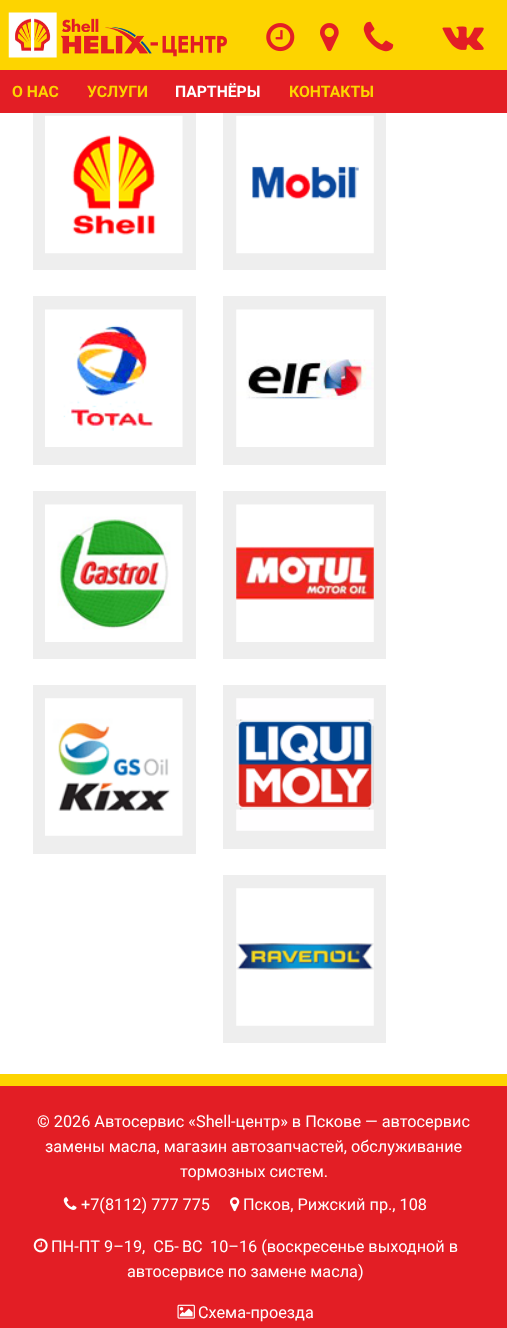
<svg xmlns="http://www.w3.org/2000/svg" width="507" height="1328" viewBox="0 0 507 1328">
  <rect width="100%" height="100%" fill="#ffffff"/>
  <rect x="0" y="0" width="507" height="70" fill="#fdd400"/>
  <image x="8" y="12" width="220" height="46" href="img1.png"/>
  <image x="266" y="23" width="29" height="29" href="img2.png"/>
  <image x="320" y="23" width="19" height="29" href="img3.png"/>
  <image x="363" y="21" width="31" height="31" href="img4.png"/>
  <image x="442" y="26" width="42" height="24" href="img5.png"/>
  <rect x="0" y="70" width="507" height="43" fill="#e31e25"/>
  <text x="12" y="97" font-family="Roboto" font-size="15.75" font-weight="bold" fill="#fdd400">О НАС</text>
  <text x="87" y="97" font-family="Roboto" font-size="15.75" font-weight="bold" fill="#fdd400">УСЛУГИ</text>
  <text x="175" y="97" font-family="Roboto" font-size="15.75" font-weight="bold" fill="#ffffff">ПАРТНЁРЫ</text>
  <text x="289" y="97" font-family="Roboto" font-size="15.75" font-weight="bold" fill="#fdd400">КОНТАКТЫ</text>
  <rect x="33" y="113" width="163" height="157" fill="#eeeeee"/>
  <image x="45" y="115" width="138" height="139" href="img6.png"/>
  <rect x="223" y="113" width="163" height="157" fill="#eeeeee"/>
  <image x="236" y="115" width="138" height="139" href="img7.png"/>
  <rect x="33" y="296" width="163" height="169" fill="#eeeeee"/>
  <image x="45" y="309" width="138" height="138" href="img8.png"/>
  <rect x="223" y="296" width="163" height="169" fill="#eeeeee"/>
  <image x="236" y="309" width="138" height="138" href="img9.png"/>
  <rect x="33" y="491" width="163" height="168" fill="#eeeeee"/>
  <image x="45" y="504" width="138" height="138" href="img10.png"/>
  <rect x="223" y="491" width="163" height="168" fill="#eeeeee"/>
  <image x="236" y="504" width="138" height="138" href="img11.png"/>
  <rect x="33" y="685" width="163" height="169" fill="#eeeeee"/>
  <image x="45" y="698" width="138" height="138" href="img12.png"/>
  <rect x="223" y="685" width="163" height="164" fill="#eeeeee"/>
  <image x="236" y="698" width="138" height="133" href="img13.png"/>
  <rect x="223" y="875" width="163" height="168" fill="#eeeeee"/>
  <image x="236" y="888" width="138" height="138" href="img14.png"/>
  <rect x="0" y="1086" width="507" height="242" fill="#e31e25"/>
  <rect x="0" y="1074" width="507" height="12" fill="#fdd400"/>
  <text x="37" y="1127" font-family="Roboto" font-size="16.25" fill="#ffffff">© 2026 Автосервис «Shell-центр» в Пскове — автосервис</text>
  <text x="45" y="1152" font-family="Roboto" font-size="16.25" fill="#ffffff">замены масла, магазин автозапчастей, обслуживание</text>
  <text x="180" y="1177" font-family="Roboto" font-size="16.25" fill="#ffffff">тормозных систем.</text>
  <image x="63" y="1197" width="14" height="13" href="img15.png"/>
  <text x="81" y="1210" font-family="Roboto" font-size="16.25" fill="#ffffff">+7(8112) 777 775</text>
  <image x="230" y="1197" width="10" height="15" href="img16.png"/>
  <text x="243" y="1210" font-family="Roboto" font-size="16.25" fill="#ffffff">Псков, Рижский пр., 108</text>
  <image x="33" y="1238" width="15" height="15" href="img17.png"/>
  <text x="51" y="1252" font-family="Roboto" font-size="16.25" fill="#ffffff" xml:space="preserve">ПН-ПТ 9–19,  СБ-</text>
  <text x="182" y="1252" font-family="Roboto" font-size="16.25" fill="#ffffff">ВС</text>
  <text x="210" y="1252" font-family="Roboto" font-size="16.25" fill="#ffffff">10–16 (воскресенье выходной в</text>
  <text x="127" y="1277" font-family="Roboto" font-size="16.25" fill="#ffffff">автосервисе по замене масла)</text>
  <image x="177" y="1304" width="18" height="15" href="img18.png"/>
  <text x="198" y="1318" font-family="Roboto" font-size="16.25" fill="#ffffff">Схема-проезда</text>
</svg>
